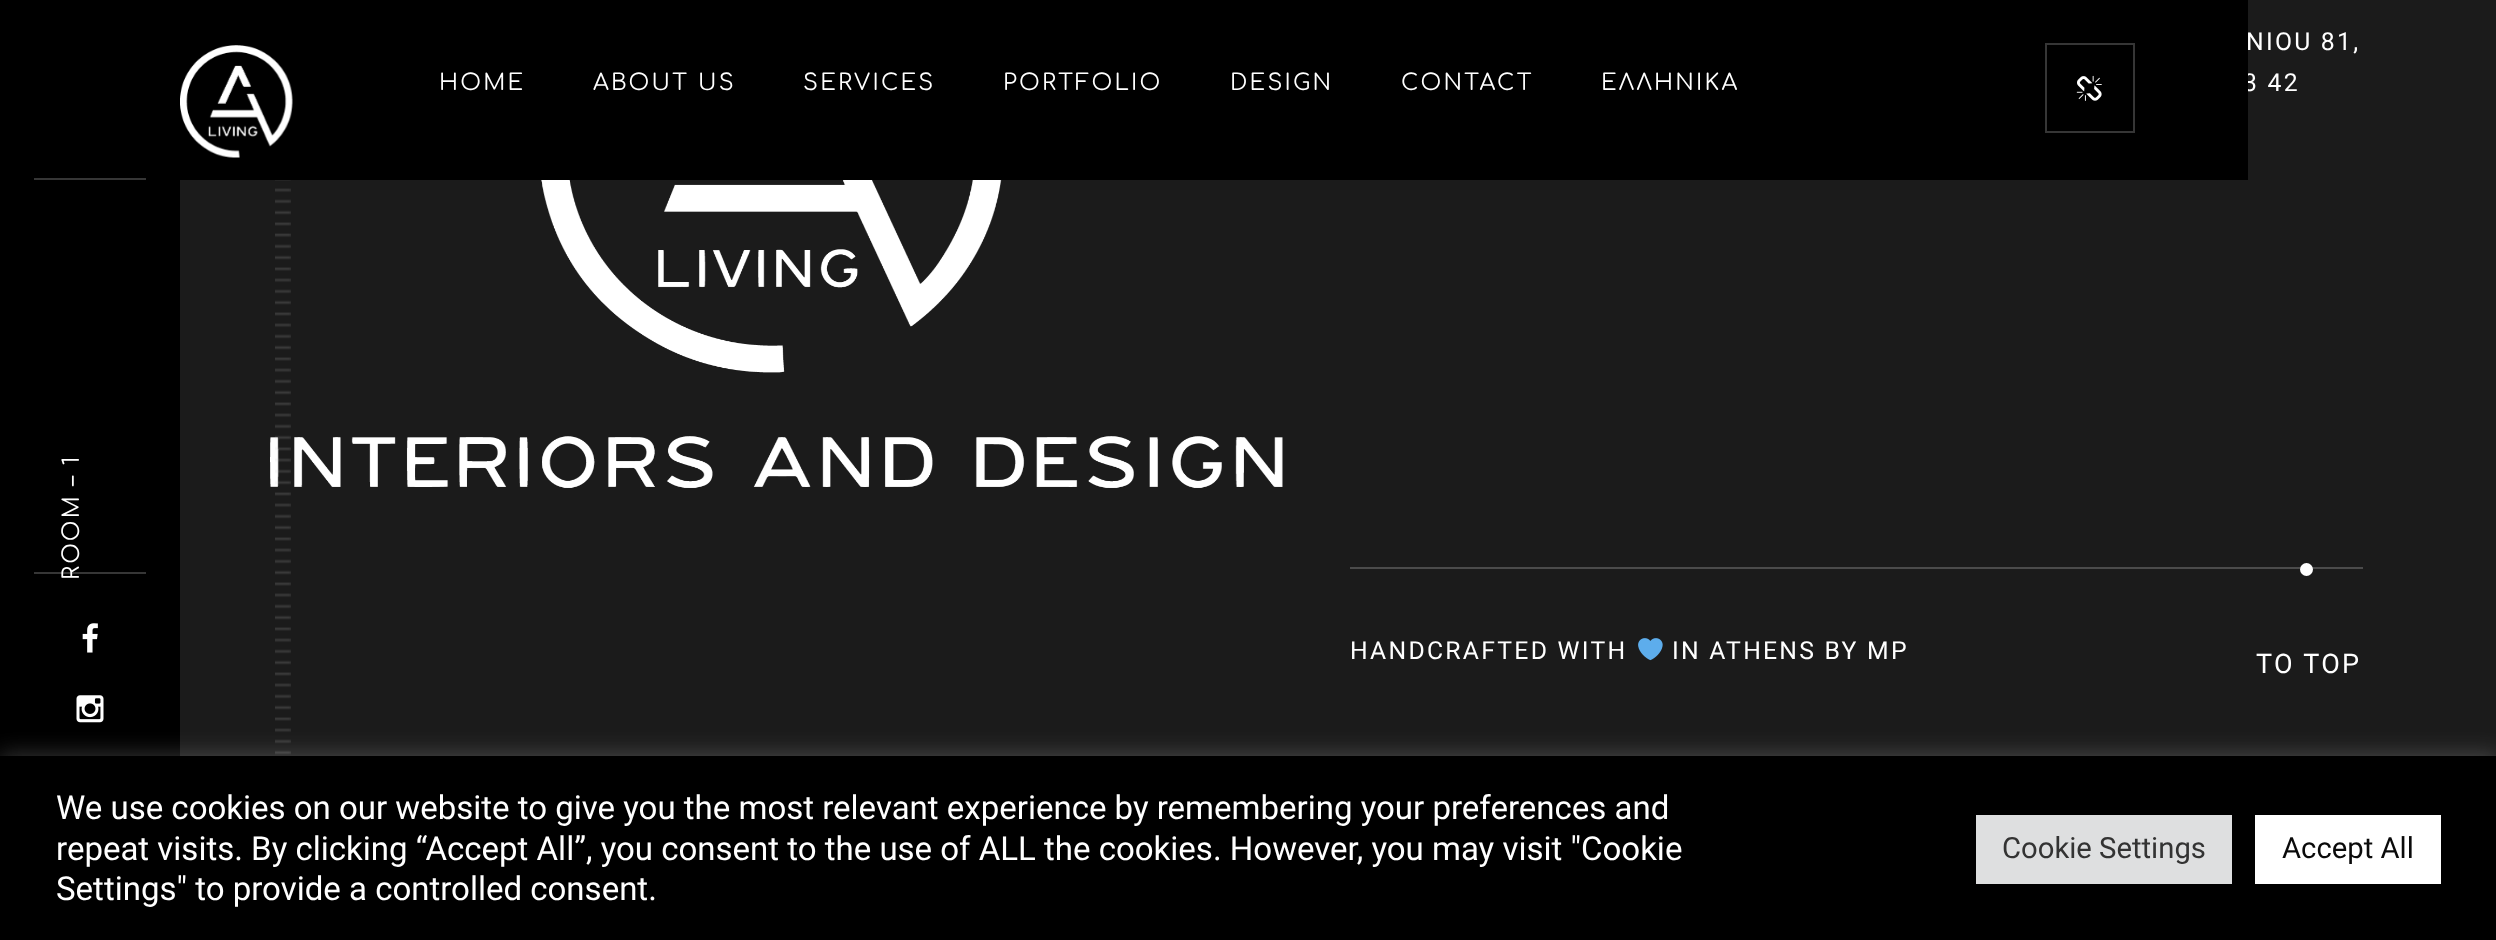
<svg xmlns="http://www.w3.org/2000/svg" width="2496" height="940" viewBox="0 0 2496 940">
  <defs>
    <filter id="blur1" x="-50%" y="-200%" width="200%" height="500%"><feGaussianBlur stdDeviation="11"/></filter>
  </defs>
  <rect width="100%" height="100%" fill="#1b1b1b"/>
  <text x="2243" y="91" font-family="Roboto" font-size="24.75" letter-spacing="2.25" fill="#ffffff">3 42</text>
  <rect x="0" y="0" width="2248" height="180" fill="#000000"/>
  <image x="180" y="45" width="113" height="113" href="img1.png"/>
  <text x="439" y="90" font-family="Comfortaa" font-size="22.5" letter-spacing="2.25" fill="#ffffff">HOME</text>
  <text x="593" y="90" font-family="Comfortaa" font-size="22.5" letter-spacing="2.25" fill="#ffffff">ABOUT US</text>
  <text x="803" y="90" font-family="Comfortaa" font-size="22.5" letter-spacing="2.25" fill="#ffffff">SERVICES</text>
  <text x="1003" y="90" font-family="Comfortaa" font-size="22.5" letter-spacing="2.25" fill="#ffffff">PORTFOLIO</text>
  <text x="1230" y="90" font-family="Comfortaa" font-size="22.5" letter-spacing="2.25" fill="#ffffff">DESIGN</text>
  <text x="1401" y="90" font-family="Comfortaa" font-size="22.5" letter-spacing="2.25" fill="#ffffff">CONTACT</text>
  <text x="1601" y="90" font-family="Comfortaa" font-size="22.5" letter-spacing="2.25" fill="#ffffff">ΕΛΛΗΝΙΚΑ</text>
  <rect x="2046" y="44" width="88" height="88" fill="none" stroke="#363636" stroke-width="2"/>
  <image x="2076" y="75" width="26" height="26" href="img2.png"/>
  <rect x="34" y="178" width="112" height="2" fill="#363636"/>
  <image x="270" y="180" width="1013" height="308" href="img4.png"/>
  <image x="275" y="180" width="16" height="575" href="img3.png"/>
  <text x="2246" y="50" font-family="Roboto" font-size="24.75" letter-spacing="2.25" fill="#ffffff">NIOU 81,</text>
  <rect x="1350" y="567" width="1013" height="2" fill="#4b4b4b"/>
  <circle cx="2306.5" cy="569.5" r="6.5" fill="#ffffff"/>
  <text x="1350" y="659" font-family="Roboto" font-size="24.75" letter-spacing="2.25" fill="#ffffff">HANDCRAFTED WITH</text>
  <image x="1638" y="638" width="25" height="23" href="img5.png"/>
  <text x="1672" y="659" font-family="Roboto" font-size="24.75" letter-spacing="2.25" fill="#ffffff">IN ATHENS BY MP</text>
  <text x="2256" y="673" font-family="Roboto" font-size="27" letter-spacing="2.25" fill="#ffffff">TO TOP</text>
  <rect x="0" y="180" width="180" height="576" fill="#000000"/>
  <rect x="34" y="572" width="112" height="2" fill="#363636"/>
  <text x="79" y="580" transform="rotate(-90 79 580)" font-family="Comfortaa" font-size="22.5" letter-spacing="2.25" fill="#ffffff">ROOM – 1</text>
  <image x="82" y="623" width="16" height="30" href="img6.png"/>
  <image x="76" y="695" width="28" height="28" href="img7.png"/>
  <rect x="0" y="754" width="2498" height="184" fill="#acabab" fill-opacity="0.3" filter="url(#blur1)"/>
  <rect x="0" y="756" width="2496" height="184" fill="#000000"/>
  <text x="56" y="819" font-family="Roboto" font-size="33" fill="#ffffff">We use cookies on our website to give you the most relevant experience by remembering your preferences and</text>
  <text x="56" y="860" font-family="Roboto" font-size="33" fill="#ffffff">repeat visits. By clicking “Accept All”, you consent to the use of ALL the cookies. However, you may visit "Cookie</text>
  <text x="56" y="900" font-family="Roboto" font-size="33" fill="#ffffff">Settings" to provide a controlled consent.</text>
  <rect x="1976" y="815" width="256" height="69" fill="#dedfe0"/>
  <text x="2002" y="858" font-family="Roboto" font-size="29.25" fill="#333333">Cookie Settings</text>
  <rect x="2255" y="815" width="186" height="69" fill="#ffffff"/>
  <text x="2282" y="858" font-family="Roboto" font-size="29.25" fill="#0a0a0a">Accept All</text>
</svg>
